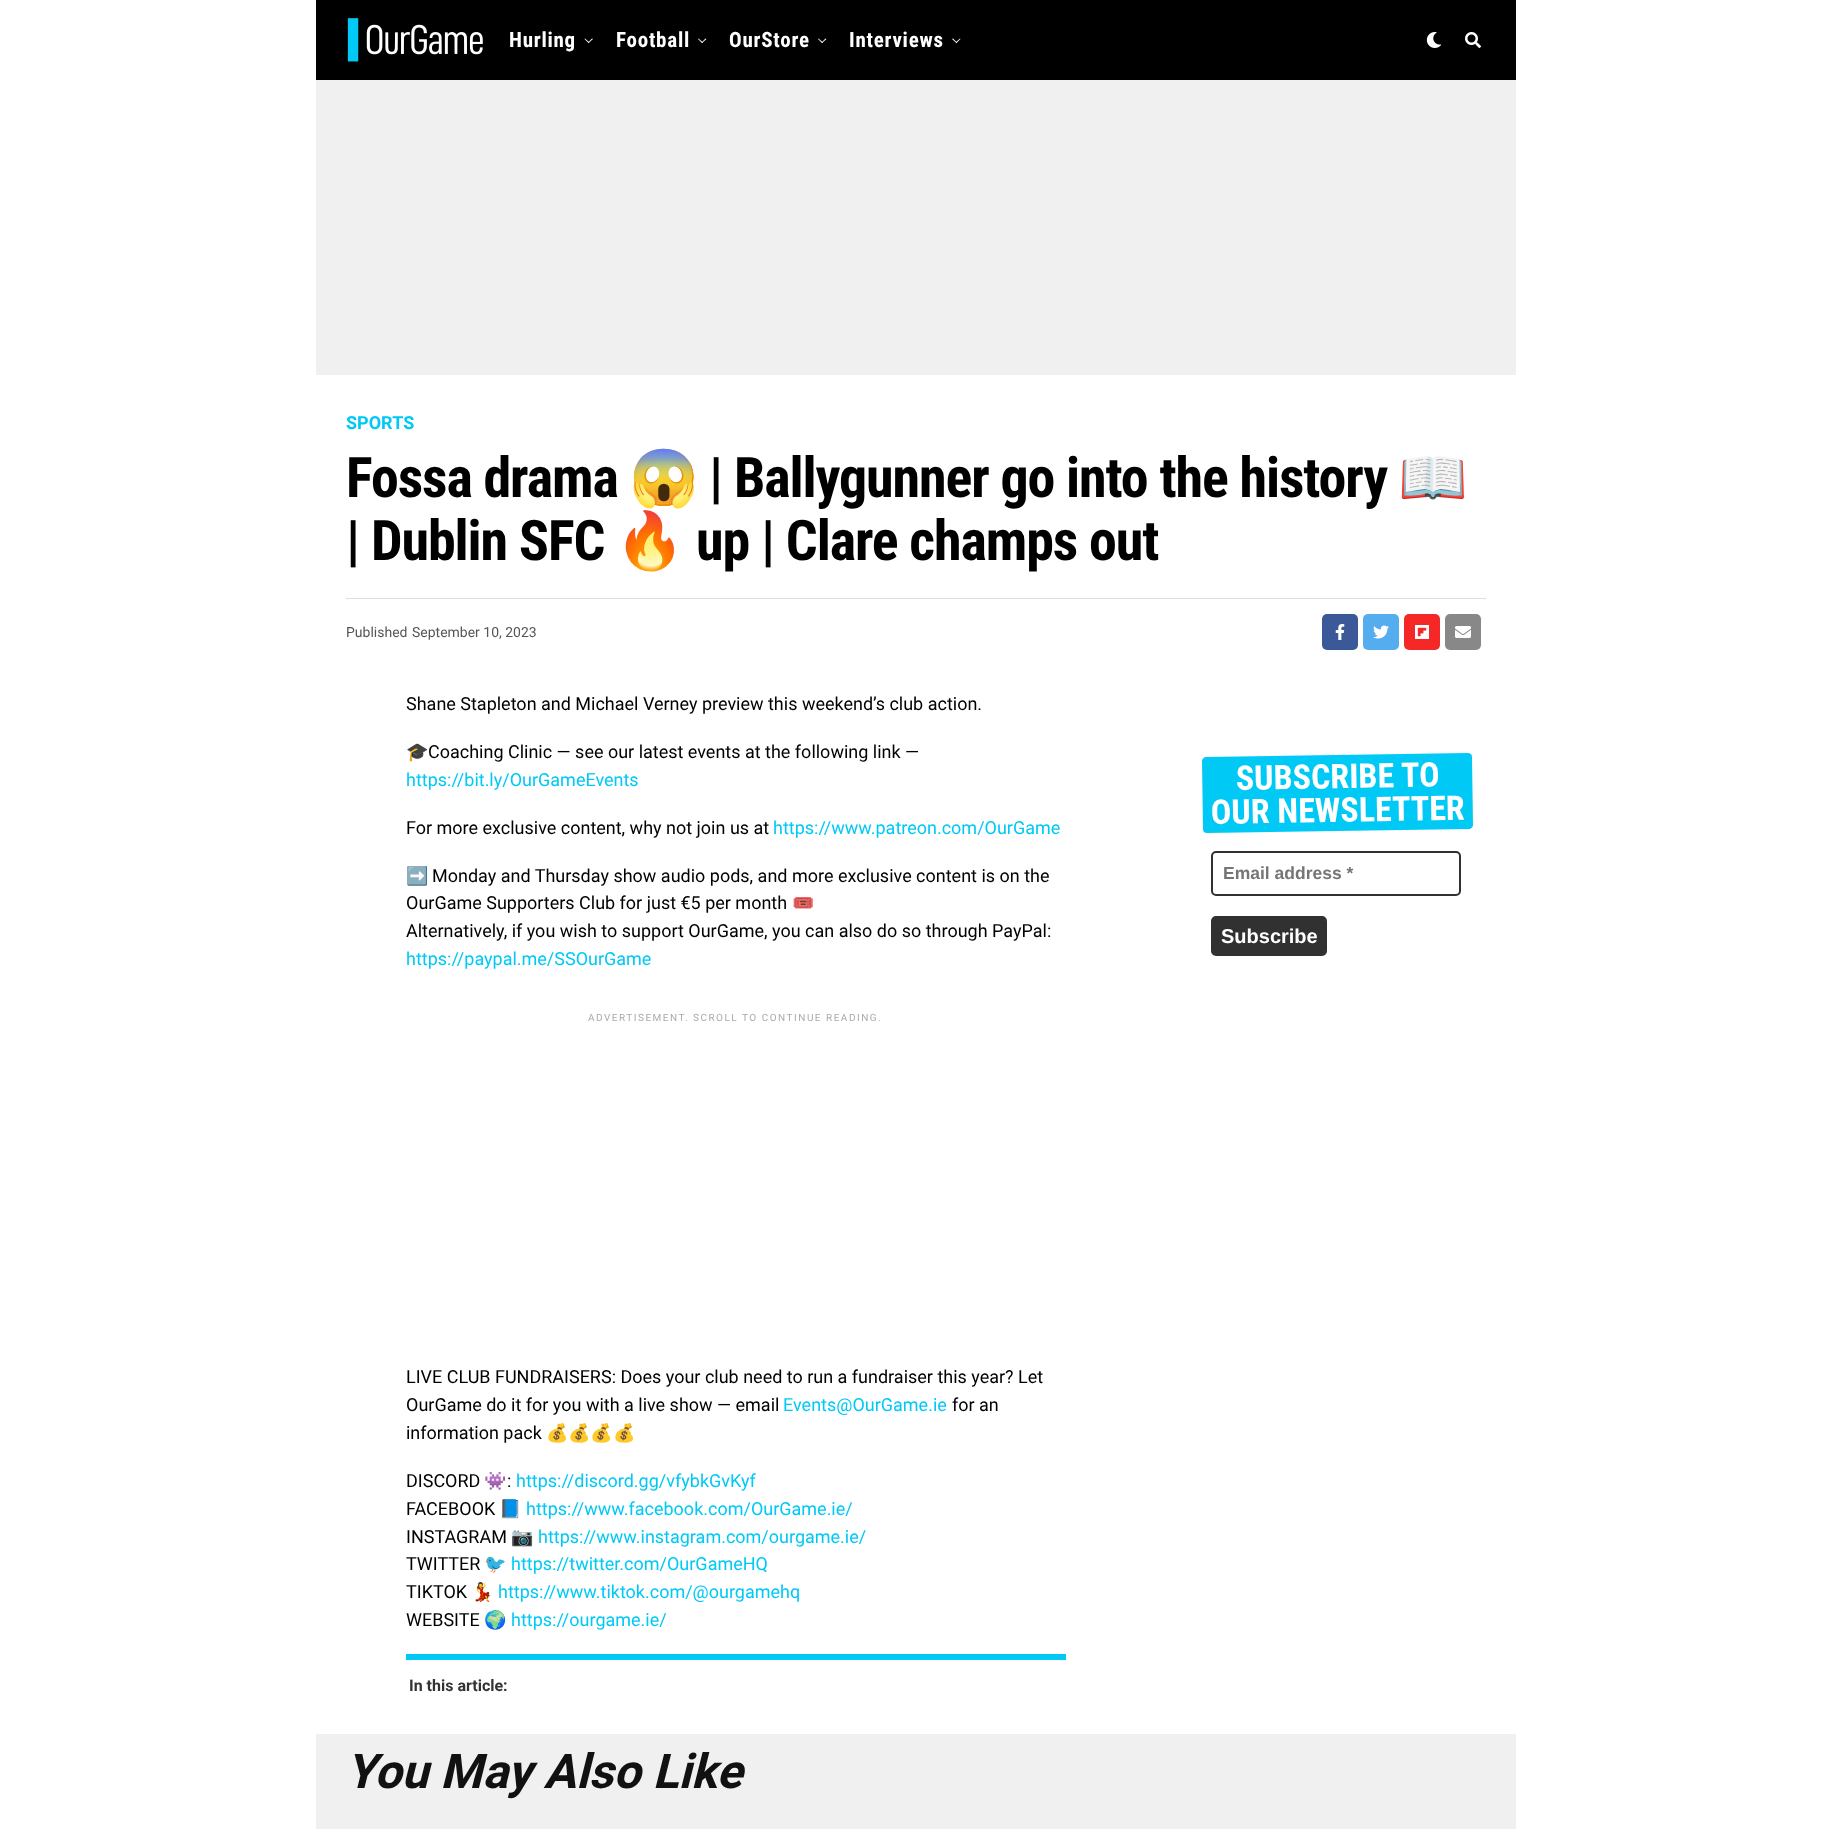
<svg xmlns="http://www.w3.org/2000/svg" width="1831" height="1829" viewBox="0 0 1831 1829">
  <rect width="100%" height="100%" fill="#ffffff"/>
  <rect x="316" y="80" width="1200" height="1749" fill="#f0f0f0"/>
  <rect x="316" y="0" width="1200" height="80" fill="#000000"/>
  <image x="347" y="18" width="136" height="44" href="img1.png"/>
  <text x="509" y="47" font-family="Roboto Condensed" font-size="21" font-weight="bold" letter-spacing="0.75" fill="#ffffff">Hurling</text>
  <path d="M592 38.5L593 39L588.5 43L588 42.5Z" fill="#ffffff"/>
  <path d="M585 38.5L589.5 42.5L588.5 43L584.5 39Z" fill="#ffffff"/>
  <text x="616" y="47" font-family="Roboto Condensed" font-size="21" font-weight="bold" letter-spacing="0.75" fill="#ffffff">Football</text>
  <path d="M705.5 38.5L706.5 39L702 43L701.5 42.5Z" fill="#ffffff"/>
  <path d="M698.5 38.5L703 42.5L702 43L698 39Z" fill="#ffffff"/>
  <text x="729" y="47" font-family="Roboto Condensed" font-size="21" font-weight="bold" letter-spacing="0.75" fill="#ffffff">OurStore</text>
  <path d="M825.5 38.5L826.5 39L822 43L821.5 42.5Z" fill="#ffffff"/>
  <path d="M818.5 38.5L823 42.5L822 43L818 39Z" fill="#ffffff"/>
  <text x="849" y="47" font-family="Roboto Condensed" font-size="21" font-weight="bold" letter-spacing="0.75" fill="#ffffff">Interviews</text>
  <path d="M960 38.5L960.5 39L956.5 43L955.5 42.5Z" fill="#ffffff"/>
  <path d="M953 38.5L957 42.5L956.5 43L952 39Z" fill="#ffffff"/>
  <image x="1426" y="32" width="16" height="16" href="img2.png"/>
  <image x="1465" y="32" width="16" height="16" href="img3.png"/>
  <rect x="316" y="375" width="1200" height="1359" fill="#ffffff"/>
  <text x="346" y="429" font-family="Roboto" font-size="18" font-weight="bold" fill="#00c9f6">SPORTS</text>
  <text x="346" y="497" font-family="Roboto Condensed" font-size="56" font-weight="bold" letter-spacing="-1.1" fill="#000000">Fossa drama</text>
  <text x="629" y="497" font-family="Noto Color Emoji" font-size="56" font-weight="bold" letter-spacing="-1.1" fill="#000000">😱</text>
  <text x="709" y="497" font-family="Roboto Condensed" font-size="56" font-weight="bold" letter-spacing="-1.1" fill="#000000">| Ballygunner go into the history</text>
  <text x="1398" y="497" font-family="Noto Color Emoji" font-size="56" font-weight="bold" letter-spacing="-1.1" fill="#000000">📖</text>
  <text x="346" y="560" font-family="Roboto Condensed" font-size="56" font-weight="bold" letter-spacing="-1.1" fill="#000000">| Dublin SFC</text>
  <text x="615" y="560" font-family="Noto Color Emoji" font-size="56" font-weight="bold" letter-spacing="-1.1" fill="#000000">🔥</text>
  <text x="696" y="560" font-family="Roboto Condensed" font-size="56" font-weight="bold" letter-spacing="-1.1" fill="#000000">up | Clare champs out</text>
  <rect x="346" y="598" width="1140" height="1" fill="#dddddd"/>
  <text x="346" y="637" font-family="Roboto" font-size="14" fill="#555555">Published</text>
  <text x="412" y="637" font-family="Roboto" font-size="14" fill="#555555">September 10, 2023</text>
  <rect x="1322" y="614" width="36" height="36" rx="5" fill="#3b5998"/>
  <image x="1335" y="624" width="10" height="16" href="img4.png"/>
  <rect x="1363" y="614" width="36" height="36" rx="5" fill="#55acee"/>
  <image x="1373" y="625" width="16" height="14" href="img5.png"/>
  <rect x="1404" y="614" width="36" height="36" rx="5" fill="#f52828"/>
  <image x="1415" y="625" width="14" height="14" href="img6.png"/>
  <rect x="1445" y="614" width="36" height="36" rx="5" fill="#888888"/>
  <image x="1455" y="626" width="16" height="12" href="img7.png"/>
  <text x="406" y="710" font-family="Roboto" font-size="18" fill="#000000">Shane Stapleton and Michael Verney preview this weekend’s club action.</text>
  <text x="406" y="758" font-family="Noto Color Emoji" font-size="18" fill="#000000">🎓</text>
  <text x="428" y="758" font-family="Roboto" font-size="18" fill="#000000">Coaching Clinic — see our latest events at the following link —</text>
  <text x="406" y="786" font-family="Roboto" font-size="18" fill="#00c9f6">https://bit.ly/OurGameEvents</text>
  <text x="406" y="834" font-family="Roboto" font-size="18" fill="#000000">For more exclusive content, why not join us at</text>
  <text x="773" y="834" font-family="Roboto" font-size="18" fill="#00c9f6">https://www.patreon.com/OurGame</text>
  <text x="406" y="882" font-family="Noto Color Emoji" font-size="18" fill="#000000">➡️</text>
  <text x="432" y="882" font-family="Roboto" font-size="18" fill="#000000">Monday and Thursday show audio pods, and more exclusive content is on the</text>
  <text x="406" y="909" font-family="Roboto" font-size="18" fill="#000000">OurGame Supporters Club for just €5 per month</text>
  <text x="792" y="909" font-family="Noto Color Emoji" font-size="18" fill="#000000">🎟</text>
  <text x="406" y="937" font-family="Roboto" font-size="18" fill="#000000">Alternatively, if you wish to support OurGame, you can also do so through PayPal:</text>
  <text x="406" y="965" font-family="Roboto" font-size="18" fill="#00c9f6">https://paypal.me/SSOurGame</text>
  <text x="588" y="1021" font-family="Roboto" font-size="10" letter-spacing="1.5" fill="#aaaaaa">ADVERTISEMENT. SCROLL TO CONTINUE READING.</text>
  <text x="406" y="1383" font-family="Roboto" font-size="18" fill="#000000">LIVE CLUB FUNDRAISERS: Does your club need to run a fundraiser this year? Let</text>
  <text x="406" y="1411" font-family="Roboto" font-size="18" fill="#000000">OurGame do it for you with a live show — email</text>
  <text x="783" y="1411" font-family="Roboto" font-size="18" fill="#00c9f6">Events@OurGame.ie</text>
  <text x="952" y="1411" font-family="Roboto" font-size="18" fill="#000000">for an</text>
  <text x="406" y="1439" font-family="Roboto" font-size="18" fill="#000000">information pack</text>
  <text x="546" y="1439" font-family="Noto Color Emoji" font-size="18" fill="#000000">💰💰💰💰</text>
  <text x="406" y="1487" font-family="Roboto" font-size="18" fill="#000000">DISCORD</text>
  <text x="484" y="1487" font-family="Noto Color Emoji" font-size="18" fill="#000000">👾</text>
  <text x="507" y="1487" font-family="Roboto" font-size="18" fill="#000000">:</text>
  <text x="516" y="1487" font-family="Roboto" font-size="18" fill="#00c9f6">https://discord.gg/vfybkGvKyf</text>
  <text x="406" y="1515" font-family="Roboto" font-size="18" fill="#000000">FACEBOOK</text>
  <text x="499" y="1515" font-family="Noto Color Emoji" font-size="18" fill="#000000">📘</text>
  <text x="526" y="1515" font-family="Roboto" font-size="18" fill="#00c9f6">https://www.facebook.com/OurGame.ie/</text>
  <text x="406" y="1543" font-family="Roboto" font-size="18" fill="#000000">INSTAGRAM</text>
  <text x="511" y="1543" font-family="Noto Color Emoji" font-size="18" fill="#000000">📷</text>
  <text x="538" y="1543" font-family="Roboto" font-size="18" fill="#00c9f6">https://www.instagram.com/ourgame.ie/</text>
  <text x="406" y="1570" font-family="Roboto" font-size="18" fill="#000000">TWITTER</text>
  <text x="484" y="1570" font-family="Noto Color Emoji" font-size="18" fill="#000000">🐦</text>
  <text x="511" y="1570" font-family="Roboto" font-size="18" fill="#00c9f6">https://twitter.com/OurGameHQ</text>
  <text x="406" y="1598" font-family="Roboto" font-size="18" fill="#000000">TIKTOK</text>
  <text x="471" y="1598" font-family="Noto Color Emoji" font-size="18" fill="#000000">💃</text>
  <text x="498" y="1598" font-family="Roboto" font-size="18" fill="#00c9f6">https://www.tiktok.com/@ourgamehq</text>
  <text x="406" y="1626" font-family="Roboto" font-size="18" fill="#000000">WEBSITE</text>
  <text x="484" y="1626" font-family="Noto Color Emoji" font-size="18" fill="#000000">🌍</text>
  <text x="511" y="1626" font-family="Roboto" font-size="18" fill="#00c9f6">https://ourgame.ie/</text>
  <rect x="406" y="1654" width="660" height="6" fill="#00c9f6"/>
  <text x="409" y="1691" font-family="Roboto" font-size="16" font-weight="bold" fill="#333333">In this article:</text>
  <path d="M1206 757L1468 753C1470 753 1472 754 1472 757L1473 825C1473 827 1471 829 1469 829L1207 833C1205 833 1203 832 1203 829L1202 761C1202 759 1204 757 1206 757Z" fill="#00c9f6"/>
  <text x="1236" y="790" transform="rotate(-1 1236 790)" font-family="Roboto Condensed" font-size="34" font-weight="bold" fill="#ffffff">SUBSCRIBE TO</text>
  <text x="1211" y="824" transform="rotate(-1 1211 824)" font-family="Roboto Condensed" font-size="34" font-weight="bold" fill="#ffffff">OUR NEWSLETTER</text>
  <rect x="1212" y="852" width="248" height="43" rx="4" fill="none" stroke="#313131" stroke-width="2"/>
  <text x="1223" y="879" font-family="Liberation Sans" font-size="17.5" font-weight="bold" fill="#757575">Email address *</text>
  <rect x="1213" y="918" width="112" height="36" rx="3" fill="#313131" stroke="#313131" stroke-width="4"/>
  <text x="1221" y="943" font-family="Liberation Sans" font-size="20" font-weight="bold" fill="#ffffff">Subscribe</text>
  <text x="346" y="1788" font-family="Roboto" font-size="48" font-weight="bold" font-style="italic" fill="#111111">You May Also Like</text>
</svg>
